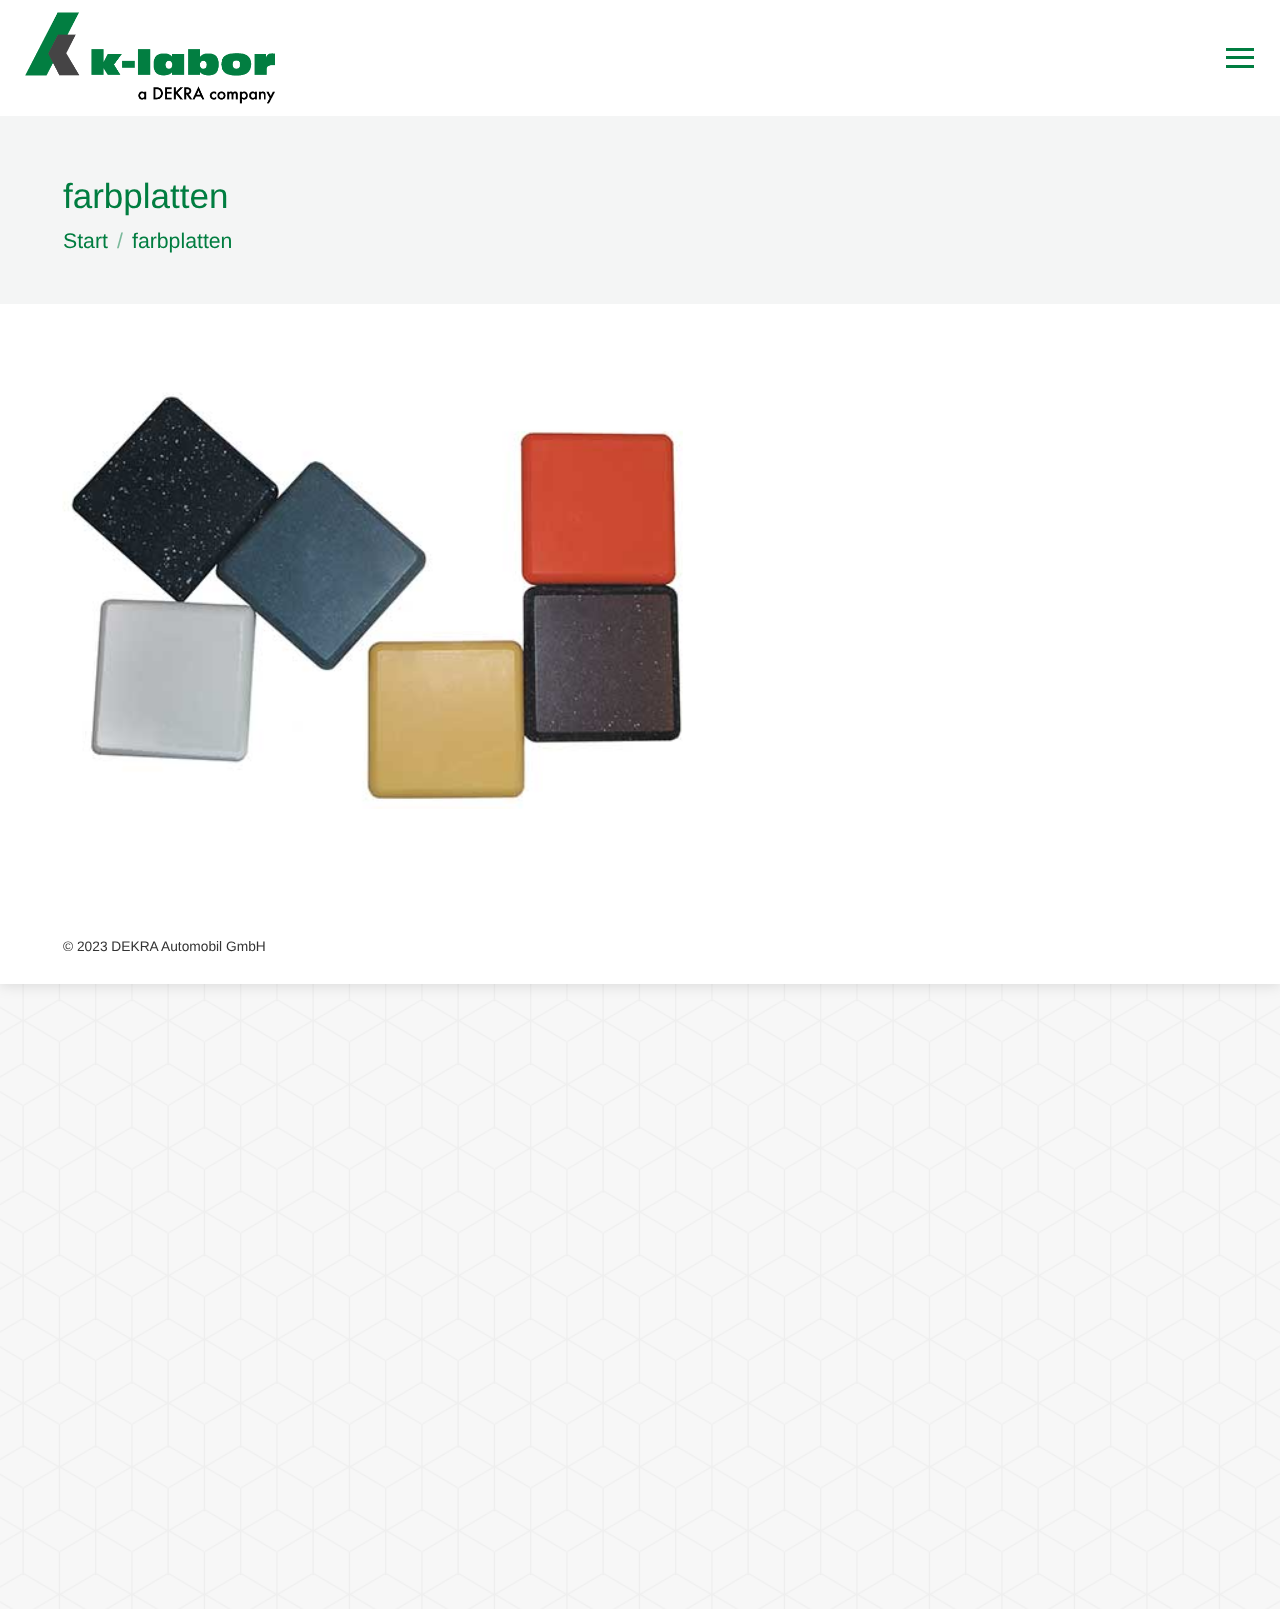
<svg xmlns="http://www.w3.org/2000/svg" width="1280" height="1609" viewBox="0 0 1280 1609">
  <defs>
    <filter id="blur1" x="-50%" y="-200%" width="200%" height="500%"><feGaussianBlur stdDeviation="7.5"/></filter>
  </defs>
  <rect width="100%" height="100%" fill="#f7f7f7"/>
  <image x="0" y="984" width="1280" height="625" href="img1.png"/>
  <rect x="0" y="0" width="1280" height="984" fill="#000000" fill-opacity="0.15" filter="url(#blur1)"/>
  <rect x="0" y="0" width="1280" height="984" fill="#ffffff"/>
  <image x="25" y="12" width="250" height="92" href="img2.png"/>
  <rect x="1226" y="48" width="28" height="3" fill="#007d40"/>
  <rect x="1226" y="56" width="28" height="3" fill="#007d40"/>
  <rect x="1226" y="65" width="28" height="3" fill="#007d40"/>
  <rect x="0" y="116" width="1280" height="188" fill="#f4f5f5"/>
  <text x="63" y="208" font-family="Liberation Sans" font-size="35" fill="#007d40">farbplatten</text>
  <text x="63" y="248" font-family="Liberation Sans" font-size="21.25" fill="#007d40">Start</text>
  <text x="117" y="248" font-family="Liberation Sans" font-size="21.25" fill="#7ab99b">/</text>
  <text x="132" y="248" font-family="Liberation Sans" font-size="21.25" fill="#007d40">farbplatten</text>
  <image x="62" y="392" width="621" height="417" href="img3.png"/>
  <text x="63" y="951" font-family="Liberation Sans" font-size="13.75" fill="#333333">© 2023 DEKRA Automobil GmbH</text>
</svg>
